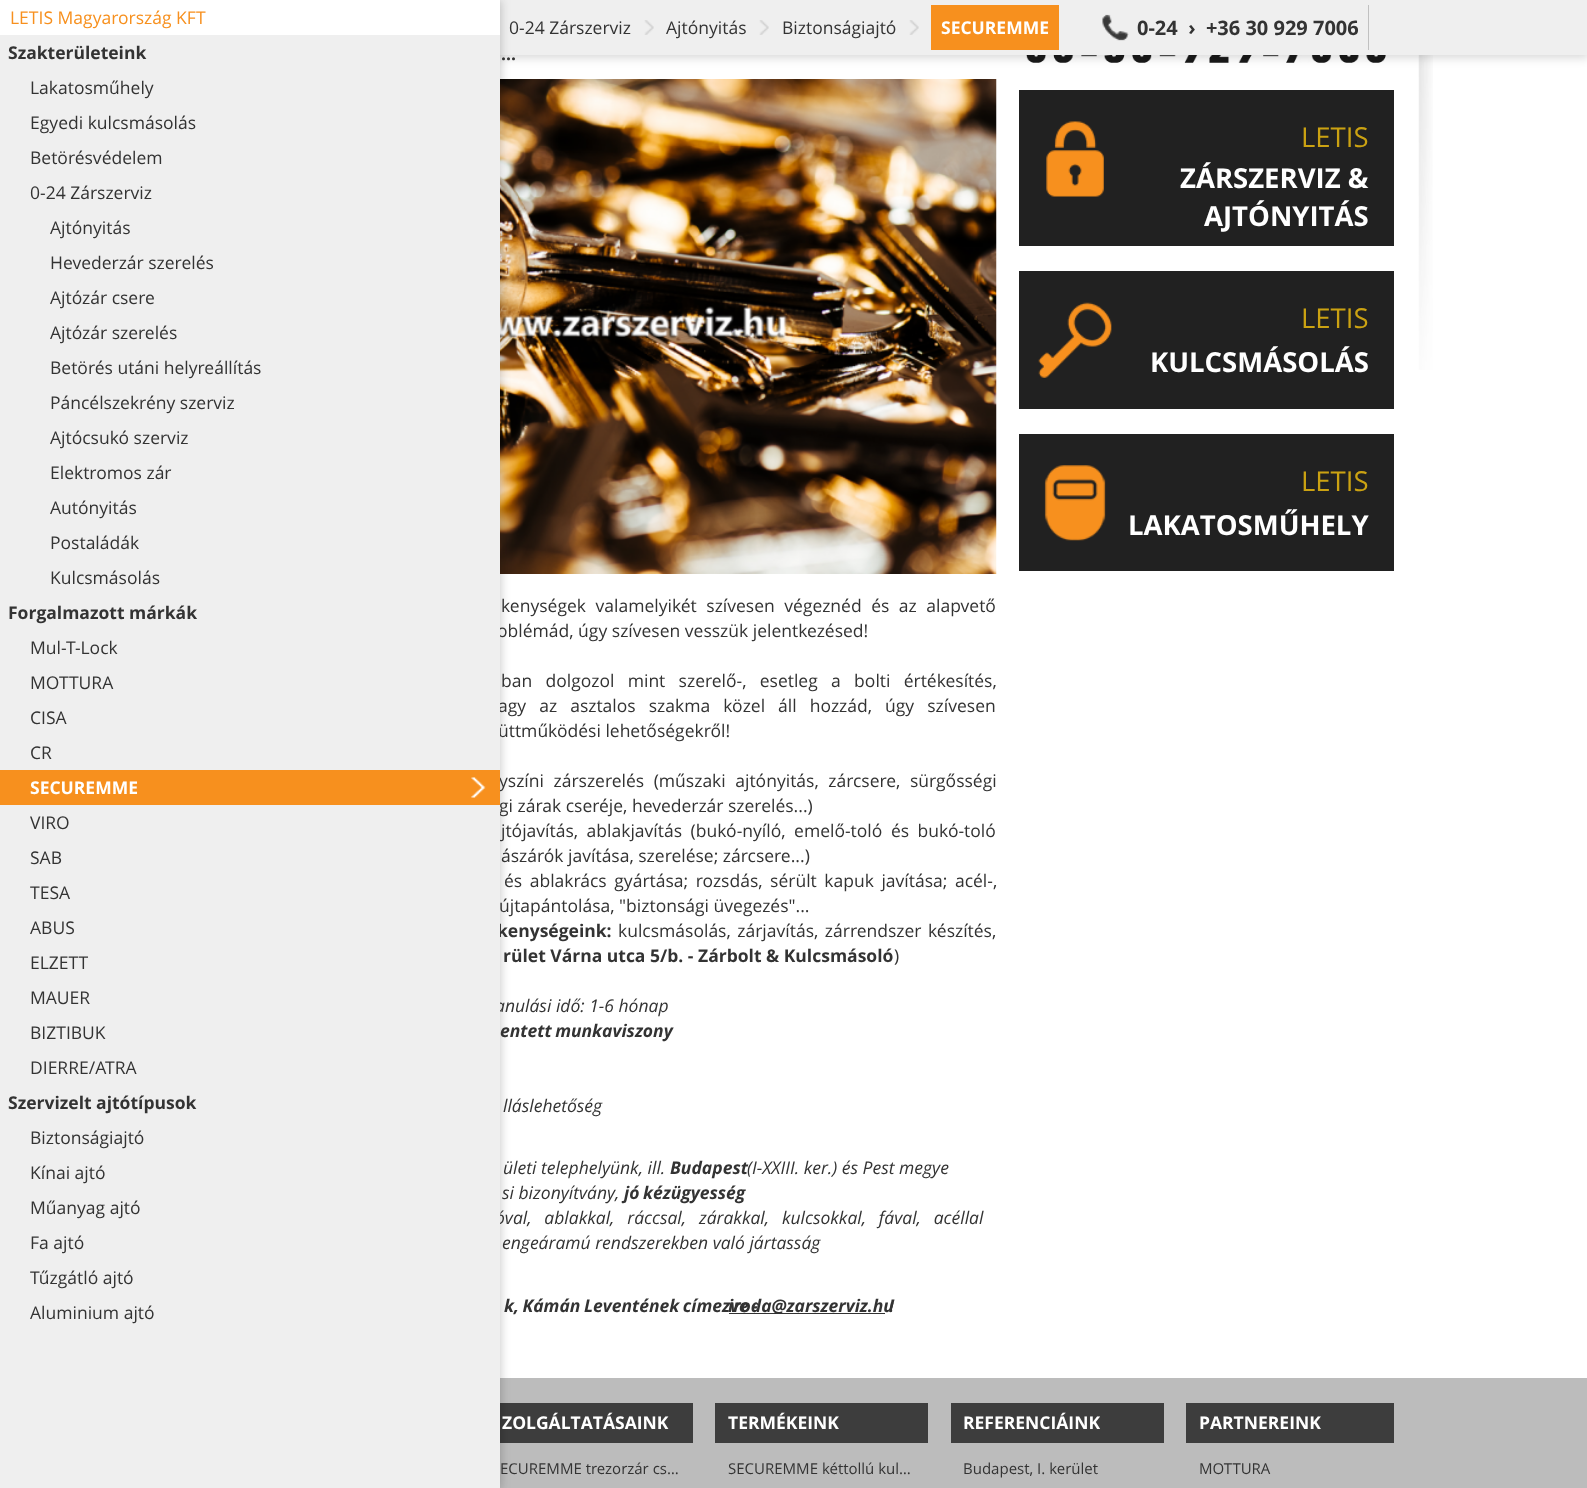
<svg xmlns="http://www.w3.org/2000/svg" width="1587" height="1488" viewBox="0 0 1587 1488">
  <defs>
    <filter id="blur1" x="-50%" y="-200%" width="200%" height="500%"><feGaussianBlur stdDeviation="5"/></filter>
  </defs>
  <rect width="100%" height="100%" fill="#ffffff"/>
  <image x="500" y="79" width="497" height="495" href="img2.png"/>
  <image x="1019" y="55" width="374" height="8" href="img3.png"/>
  <image x="1418" y="55" width="15" height="315" href="img7.png"/>
  <rect x="1" y="3" width="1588" height="55" fill="#000000" fill-opacity="0.15" filter="url(#blur1)"/>
  <rect x="500" y="0" width="1087" height="55" fill="#efefef"/>
  <rect x="500" y="1378" width="1087" height="110" fill="#bcbcbc"/>
  <rect x="500" y="1403" width="193" height="40" fill="#3d3d3d"/>
  <rect x="1" y="0" width="500" height="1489" fill="#000000" fill-opacity="0.2" filter="url(#blur1)"/>
  <text x="497" y="637" font-family="Open Sans" font-size="17.5" fill="#333333">oblémád, úgy szívesen vesszük jelentkezésed!</text>
  <text x="498" y="712" word-spacing="8.5" font-family="Open Sans" font-size="17.5" fill="#333333">agy az asztalos szakma közel áll hozzád, úgy szívesen</text>
  <text x="498" y="737" font-family="Open Sans" font-size="17.5" fill="#333333">üttműködési lehetőségekről!</text>
  <text x="499" y="787" word-spacing="5" font-family="Open Sans" font-size="17.5" fill="#333333">yszíni zárszerelés (műszaki ajtónyitás, zárcsere, sürgősségi</text>
  <text x="499" y="812" font-family="Open Sans" font-size="17.5" fill="#333333">gi zárak cseréje, hevederzár szerelés...)</text>
  <text x="497" y="937" word-spacing="2" font-family="Open Sans" font-size="17.5" font-weight="bold" fill="#333333">kenységeink:</text>
  <text x="495" y="1012" font-family="Open Sans" font-size="17.5" font-style="italic" fill="#333333">anulási idő: 1-6 hónap</text>
  <text x="495" y="1224" word-spacing="8.25" font-family="Open Sans" font-size="17.5" font-style="italic" fill="#333333">óval, ablakkal, ráccsal, zárakkal, kulcsokkal, fával, acéllal</text>
  <rect x="0" y="35" width="500" height="1453" fill="#efefef"/>
  <rect x="0" y="0" width="500" height="35" fill="#ffffff"/>
  <text x="10" y="24" font-family="Open Sans" font-size="17.5" fill="#f7901e">LETIS Magyarország KFT</text>
  <text x="8" y="59" font-family="Open Sans" font-size="17.5" font-weight="bold" fill="#333333">Szakterületeink</text>
  <text x="30" y="94" font-family="Open Sans" font-size="17.5" fill="#333333">Lakatosműhely</text>
  <text x="30" y="129" font-family="Open Sans" font-size="17.5" fill="#333333">Egyedi kulcsmásolás</text>
  <text x="30" y="164" font-family="Open Sans" font-size="17.5" fill="#333333">Betörésvédelem</text>
  <text x="30" y="199" font-family="Open Sans" font-size="17.5" fill="#333333">0-24 Zárszerviz</text>
  <text x="50" y="234" font-family="Open Sans" font-size="17.5" fill="#333333">Ajtónyitás</text>
  <text x="50" y="269" font-family="Open Sans" font-size="17.5" fill="#333333">Hevederzár szerelés</text>
  <text x="50" y="304" font-family="Open Sans" font-size="17.5" fill="#333333">Ajtózár csere</text>
  <text x="50" y="339" font-family="Open Sans" font-size="17.5" fill="#333333">Ajtózár szerelés</text>
  <text x="50" y="374" font-family="Open Sans" font-size="17.5" fill="#333333">Betörés utáni helyreállítás</text>
  <text x="50" y="409" font-family="Open Sans" font-size="17.5" fill="#333333">Páncélszekrény szerviz</text>
  <text x="50" y="444" font-family="Open Sans" font-size="17.5" fill="#333333">Ajtócsukó szerviz</text>
  <text x="50" y="479" font-family="Open Sans" font-size="17.5" fill="#333333">Elektromos zár</text>
  <text x="50" y="514" font-family="Open Sans" font-size="17.5" fill="#333333">Autónyitás</text>
  <text x="50" y="549" font-family="Open Sans" font-size="17.5" fill="#333333">Postaládák</text>
  <text x="50" y="584" font-family="Open Sans" font-size="17.5" fill="#333333">Kulcsmásolás</text>
  <text x="8" y="619" font-family="Open Sans" font-size="17.5" font-weight="bold" fill="#333333">Forgalmazott márkák</text>
  <text x="30" y="654" font-family="Open Sans" font-size="17.5" fill="#333333">Mul-T-Lock</text>
  <text x="30" y="689" font-family="Open Sans" font-size="17.5" fill="#333333">MOTTURA</text>
  <text x="30" y="724" font-family="Open Sans" font-size="17.5" fill="#333333">CISA</text>
  <text x="30" y="759" font-family="Open Sans" font-size="17.5" fill="#333333">CR</text>
  <rect x="0" y="770" width="500" height="35" fill="#f7901e"/>
  <image x="471" y="777" width="15" height="21" href="img1.png"/>
  <text x="30" y="794" font-family="Open Sans" font-size="17.5" font-weight="bold" fill="#ffffff">SECUREMME</text>
  <text x="30" y="829" font-family="Open Sans" font-size="17.5" fill="#333333">VIRO</text>
  <text x="30" y="864" font-family="Open Sans" font-size="17.5" fill="#333333">SAB</text>
  <text x="30" y="899" font-family="Open Sans" font-size="17.5" fill="#333333">TESA</text>
  <text x="30" y="934" font-family="Open Sans" font-size="17.5" fill="#333333">ABUS</text>
  <text x="30" y="969" font-family="Open Sans" font-size="17.5" fill="#333333">ELZETT</text>
  <text x="30" y="1004" font-family="Open Sans" font-size="17.5" fill="#333333">MAUER</text>
  <text x="30" y="1039" font-family="Open Sans" font-size="17.5" fill="#333333">BIZTIBUK</text>
  <text x="30" y="1074" font-family="Open Sans" font-size="17.5" fill="#333333">DIERRE/ATRA</text>
  <text x="8" y="1109" font-family="Open Sans" font-size="17.5" font-weight="bold" fill="#333333">Szervizelt ajtótípusok</text>
  <text x="30" y="1144" font-family="Open Sans" font-size="17.5" fill="#333333">Biztonságiajtó</text>
  <text x="30" y="1179" font-family="Open Sans" font-size="17.5" fill="#333333">Kínai ajtó</text>
  <text x="30" y="1214" font-family="Open Sans" font-size="17.5" fill="#333333">Műanyag ajtó</text>
  <text x="30" y="1249" font-family="Open Sans" font-size="17.5" fill="#333333">Fa ajtó</text>
  <text x="30" y="1284" font-family="Open Sans" font-size="17.5" fill="#333333">Tűzgátló ajtó</text>
  <text x="30" y="1319" font-family="Open Sans" font-size="17.5" fill="#333333">Aluminium ajtó</text>
  <text x="501" y="60" font-family="Open Sans" font-size="17.5" font-weight="bold" fill="#333333">...</text>
  <text x="501" y="612" word-spacing="5" font-family="Open Sans" font-size="17.5" fill="#333333">kenységek valamelyikét szívesen végeznéd és az alapvető</text>
  <text x="501" y="687" word-spacing="8.75" font-family="Open Sans" font-size="17.5" fill="#333333">ban dolgozol mint szerelő-, esetleg a bolti értékesítés,</text>
  <text x="501" y="837" word-spacing="4" font-family="Open Sans" font-size="17.5" fill="#333333">jtójavítás, ablakjavítás (bukó-nyíló, emelő-toló és bukó-toló</text>
  <text x="501" y="862" font-family="Open Sans" font-size="17.5" fill="#333333">ászárók javítása, szerelése; zárcsere...)</text>
  <text x="504" y="887" word-spacing="3" font-family="Open Sans" font-size="17.5" fill="#333333">és ablakrács gyártása; rozsdás, sérült kapuk javítása; acél-,</text>
  <text x="499" y="912" font-family="Open Sans" font-size="17.5" fill="#333333">újtapántolása, "biztonsági üvegezés"...</text>
  <text x="618" y="937" word-spacing="2" font-family="Open Sans" font-size="17.5" fill="#333333">kulcsmásolás, zárjavítás, zárrendszer készítés,</text>
  <text x="503" y="962" font-family="Open Sans" font-size="17.5" font-weight="bold" fill="#333333">rület Várna utca 5/b. - Zárbolt &amp; Kulcsmásoló</text>
  <text x="894" y="962" font-family="Open Sans" font-size="17.5" fill="#333333">)</text>
  <text x="500" y="1037" word-spacing="-1" font-family="Open Sans" font-size="17.5" font-weight="bold" font-style="italic" fill="#333333">entett munkaviszony</text>
  <text x="503" y="1112" font-family="Open Sans" font-size="17.5" font-style="italic" fill="#333333">lláslehetőség</text>
  <text x="503" y="1174" font-family="Open Sans" font-size="17.5" font-style="italic" fill="#333333">ületi telephelyünk, ill.</text>
  <text x="670" y="1174" font-family="Open Sans" font-size="17.5" font-weight="bold" font-style="italic" fill="#333333">Budapest</text>
  <text x="747" y="1174" font-family="Open Sans" font-size="17.5" font-style="italic" fill="#333333">(I-XXIII. ker.) és Pest megye</text>
  <text x="502" y="1199" font-family="Open Sans" font-size="17.5" font-style="italic" fill="#333333">si bizonyítvány,</text>
  <text x="624" y="1199" word-spacing="-1" font-family="Open Sans" font-size="17.5" font-weight="bold" font-style="italic" fill="#333333">jó kézügyesség</text>
  <text x="502" y="1249" font-family="Open Sans" font-size="17.5" font-style="italic" fill="#333333">engeáramú rendszerekben való jártasság</text>
  <text x="504" y="1312" word-spacing="-1" font-family="Open Sans" font-size="17.5" font-weight="bold" font-style="italic" fill="#333333">k, Kámán Leventének címezve -</text>
  <rect x="729" y="1313" width="156" height="1" fill="#333333"/>
  <text x="728" y="1312" font-family="Open Sans" font-size="17.5" font-weight="bold" font-style="italic" fill="#333333">iroda@zarszerviz.hu</text>
  <text x="889" y="1312" font-family="Open Sans" font-size="17.5" font-weight="bold" font-style="italic" fill="#333333">!</text>
  <rect x="1019" y="90" width="375" height="156" fill="#212121"/>
  <image x="1046" y="121" width="58" height="76" href="img4.png"/>
  <text x="1301" y="147" font-family="Open Sans" font-size="27.5" fill="#cba212">LETIS</text>
  <text x="1180" y="188" font-family="Open Sans" font-size="27.5" font-weight="bold" fill="#ffffff">ZÁRSZERVIZ &amp;</text>
  <text x="1204" y="226" font-family="Open Sans" font-size="27.5" font-weight="bold" fill="#ffffff">AJTÓNYITÁS</text>
  <rect x="1019" y="271" width="375" height="138" fill="#212121"/>
  <image x="1038" y="302" width="74" height="76" href="img5.png"/>
  <text x="1301" y="328" font-family="Open Sans" font-size="27.5" fill="#cba212">LETIS</text>
  <text x="1150" y="372" font-family="Open Sans" font-size="27.5" font-weight="bold" fill="#ffffff">KULCSMÁSOLÁS</text>
  <rect x="1019" y="434" width="375" height="137" fill="#212121"/>
  <image x="1044" y="465" width="62" height="76" href="img6.png"/>
  <text x="1301" y="491" font-family="Open Sans" font-size="27.5" fill="#cba212">LETIS</text>
  <text x="1128" y="535" font-family="Open Sans" font-size="27.5" font-weight="bold" fill="#ffffff">LAKATOSMŰHELY</text>
  <image x="644" y="20" width="10" height="15" href="img8.png"/>
  <text x="509" y="34" font-family="Open Sans" font-size="17.5" fill="#333333">0-24 Zárszerviz</text>
  <image x="759" y="20" width="10" height="15" href="img8.png"/>
  <text x="666" y="34" font-family="Open Sans" font-size="17.5" fill="#333333">Ajtónyitás</text>
  <image x="909" y="20" width="10" height="15" href="img8.png"/>
  <text x="782" y="34" font-family="Open Sans" font-size="17.5" fill="#333333">Biztonságiajtó</text>
  <rect x="931" y="5" width="128" height="45" fill="#f7901e"/>
  <text x="941" y="34" font-family="Open Sans" font-size="17.5" font-weight="bold" fill="#ffffff">SECUREMME</text>
  <rect x="1102" y="5" width="267" height="45" fill="#333333"/>
  <image x="1098" y="5" width="271" height="45" href="img9.png"/>
  <text x="1137" y="35" font-family="Open Sans" font-size="20" font-weight="bold" fill="#333333" xml:space="preserve">0-24  ›  +36 30 929 7006</text>
  <text x="502" y="1429" font-family="Open Sans" font-size="17.5" font-weight="bold" fill="#ffffff">ZOLGÁLTATÁSAINK</text>
  <text x="500" y="1474" font-family="Open Sans" font-size="15" fill="#333333">ECUREMME trezorzár cs…</text>
  <rect x="715" y="1403" width="213" height="40" fill="#3d3d3d"/>
  <text x="728" y="1429" font-family="Open Sans" font-size="17.5" font-weight="bold" fill="#ffffff">TERMÉKEINK</text>
  <text x="728" y="1474" font-family="Open Sans" font-size="15" fill="#333333">SECUREMME kéttollú kul…</text>
  <rect x="951" y="1403" width="213" height="40" fill="#3d3d3d"/>
  <text x="963" y="1429" font-family="Open Sans" font-size="17.5" font-weight="bold" fill="#ffffff">REFERENCIÁINK</text>
  <text x="963" y="1474" font-family="Open Sans" font-size="15" fill="#333333">Budapest, I. kerület</text>
  <rect x="1186" y="1403" width="208" height="40" fill="#3d3d3d"/>
  <text x="1199" y="1429" font-family="Open Sans" font-size="17.5" font-weight="bold" fill="#ffffff">PARTNEREINK</text>
  <text x="1199" y="1474" font-family="Open Sans" font-size="15" fill="#333333">MOTTURA</text>
</svg>
